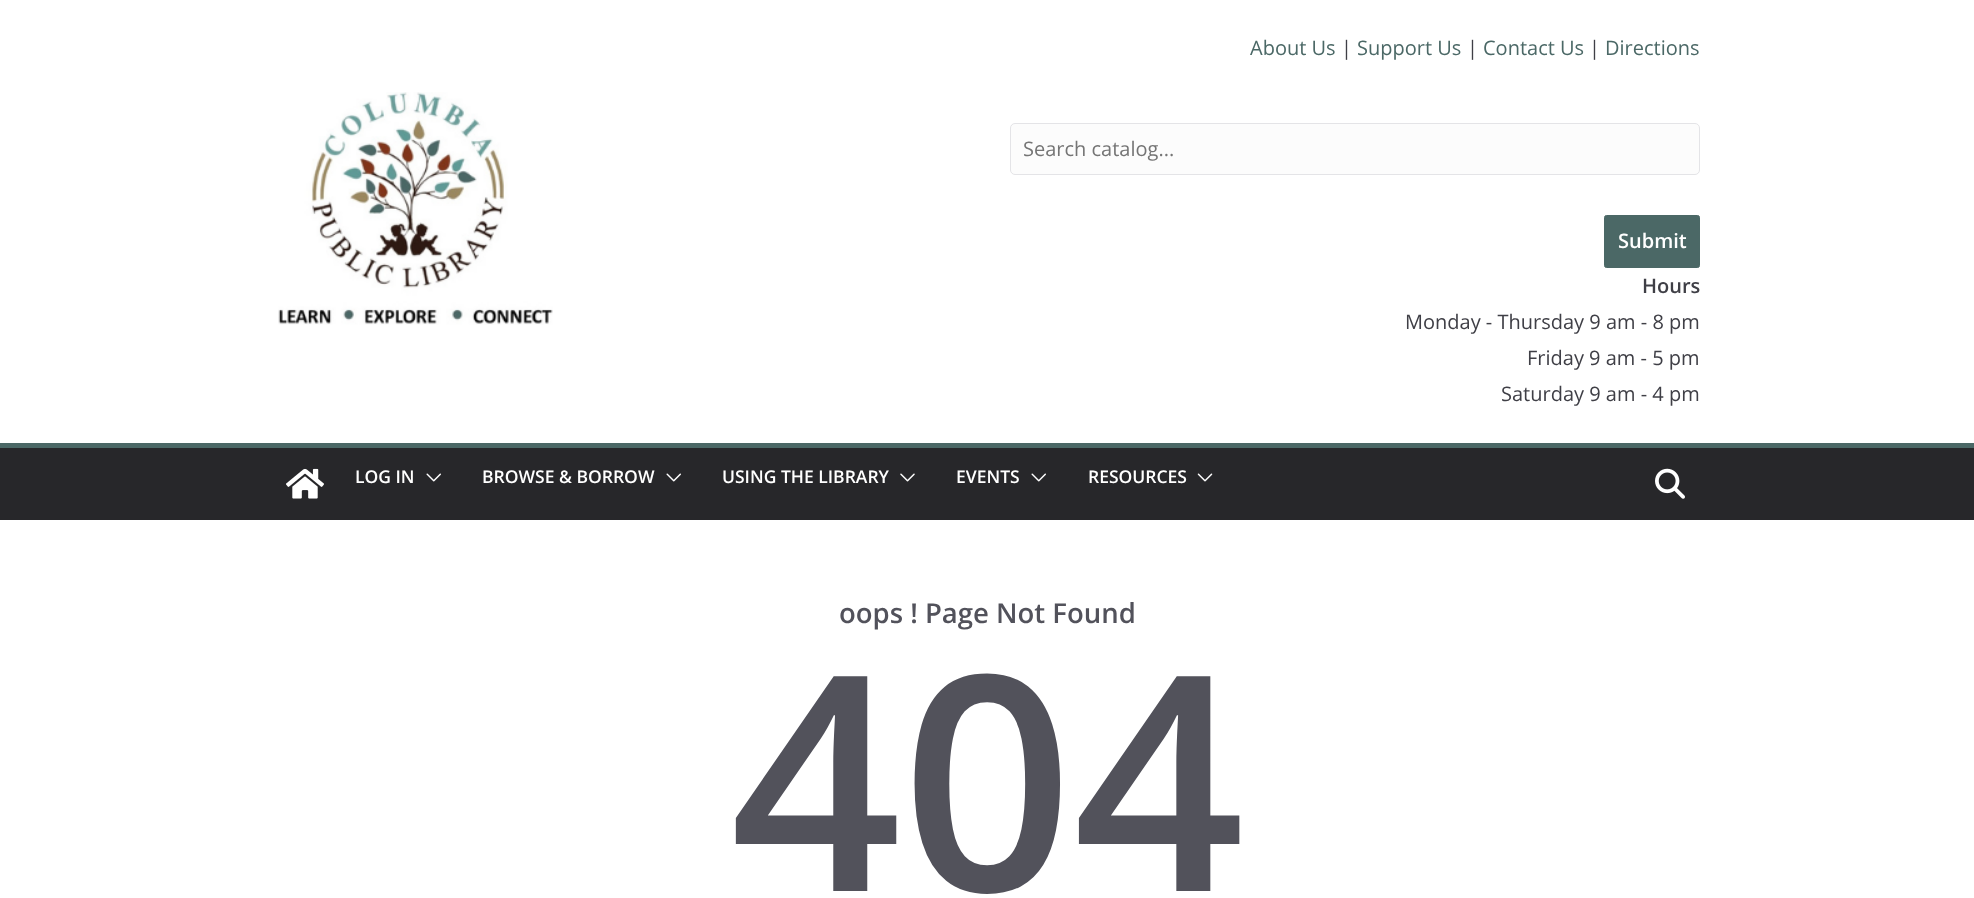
<svg xmlns="http://www.w3.org/2000/svg" width="1974" height="898" viewBox="0 0 1974 898">
  <rect width="100%" height="100%" fill="#ffffff"/>
  <image x="278" y="92" width="275" height="233" href="img1.png"/>
  <text x="1250" y="55" font-family="Open Sans" font-size="20" fill="#4b6866">About Us</text>
  <text x="1341" y="55" font-family="Open Sans" font-size="20" fill="#3f3f46">|</text>
  <text x="1357" y="55" font-family="Open Sans" font-size="20" fill="#4b6866">Support Us</text>
  <text x="1467" y="55" font-family="Open Sans" font-size="20" fill="#3f3f46">|</text>
  <text x="1483" y="55" font-family="Open Sans" font-size="20" fill="#4b6866">Contact Us</text>
  <text x="1589" y="55" font-family="Open Sans" font-size="20" fill="#3f3f46">|</text>
  <text x="1605" y="55" font-family="Open Sans" font-size="20" fill="#4b6866">Directions</text>
  <rect x="1010.5" y="123.5" width="689" height="51" rx="4.5" fill="#fcfcfc" stroke="#e4e4e7"/>
  <text x="1023" y="156" font-family="Open Sans" font-size="20" fill="#757575">Search catalog...</text>
  <rect x="1604.5" y="215.5" width="95" height="52" rx="2" fill="#4b6866" stroke="#4b6866"/>
  <text x="1618" y="248" font-family="Open Sans" font-size="20" font-weight="600" fill="#ffffff">Submit</text>
  <text x="1642" y="293" font-family="Open Sans" font-size="20" font-weight="600" fill="#3f3f46">Hours</text>
  <text x="1405" y="329" font-family="Open Sans" font-size="20" fill="#3f3f46">Monday - Thursday 9 am - 8 pm</text>
  <text x="1527" y="365" font-family="Open Sans" font-size="20" fill="#3f3f46">Friday 9 am - 5 pm</text>
  <text x="1501" y="401" font-family="Open Sans" font-size="20" fill="#3f3f46">Saturday 9 am - 4 pm</text>
  <rect x="0" y="448" width="1974" height="72" fill="#27272a"/>
  <rect x="0" y="443" width="1974" height="5" fill="#4b6866"/>
  <image x="286" y="468" width="38" height="31" href="img2.png"/>
  <text x="355" y="483" font-family="Open Sans" font-size="17.5" font-weight="600" fill="#ffffff">LOG IN</text>
  <image x="426" y="473" width="15" height="9" href="img3.png"/>
  <text x="482" y="483" font-family="Open Sans" font-size="17.5" font-weight="600" fill="#ffffff">BROWSE &amp; BORROW</text>
  <image x="666" y="473" width="15" height="9" href="img3.png"/>
  <text x="722" y="483" font-family="Open Sans" font-size="17.5" font-weight="600" fill="#ffffff">USING THE LIBRARY</text>
  <image x="900" y="473" width="15" height="9" href="img4.png"/>
  <text x="956" y="483" font-family="Open Sans" font-size="17.5" font-weight="600" fill="#ffffff">EVENTS</text>
  <image x="1031" y="473" width="15" height="9" href="img3.png"/>
  <text x="1088" y="483" font-family="Open Sans" font-size="17.5" font-weight="600" fill="#ffffff">RESOURCES</text>
  <image x="1197" y="473" width="16" height="9" href="img5.png"/>
  <image x="1655" y="468" width="30" height="31" href="img6.png"/>
  <text x="839" y="623" font-family="Open Sans" font-size="27.5" font-weight="600" fill="#52525b">oops ! Page Not Found</text>
  <text x="730" y="891" font-family="Open Sans" font-size="300" font-weight="600" fill="#52525b">404</text>
</svg>
